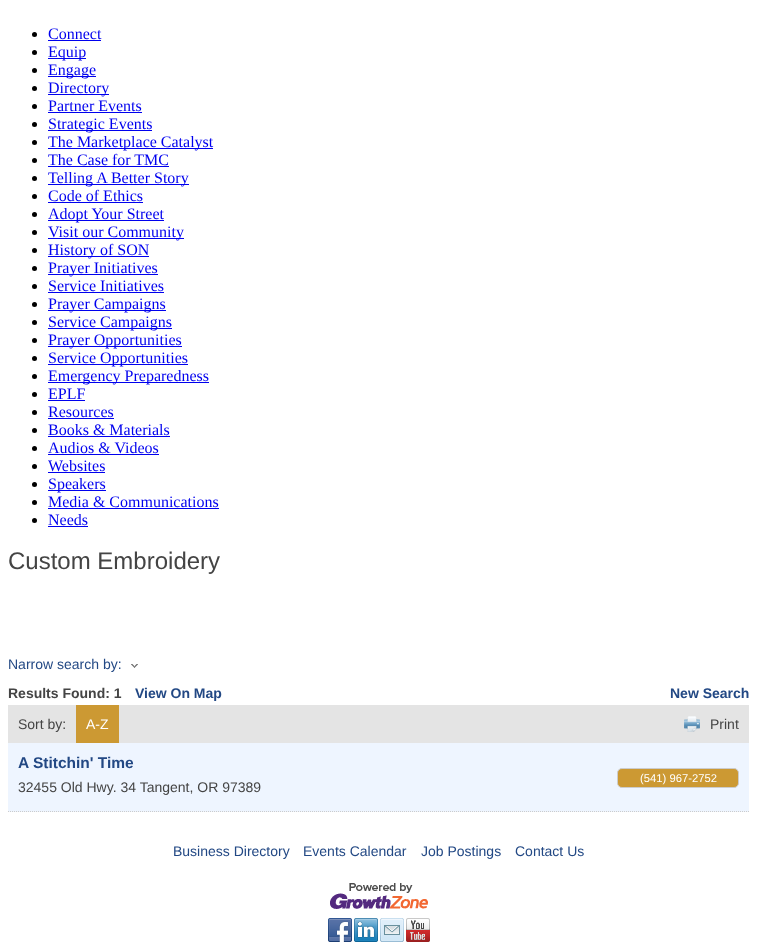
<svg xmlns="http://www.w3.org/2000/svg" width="757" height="949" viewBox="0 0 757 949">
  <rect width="100%" height="100%" fill="#ffffff"/>
  <circle cx="34.5" cy="34.5" r="2.5" fill="#000000"/>
  <text x="48" y="39" font-family="Liberation Serif" font-size="16" fill="#0000ee">Connect</text>
  <rect x="48" y="40" width="53" height="1" fill="#0000ee"/>
  <circle cx="34.5" cy="52.5" r="2.5" fill="#000000"/>
  <rect x="48" y="58" width="38" height="1" fill="#0000ee"/>
  <text x="48" y="57" font-family="Liberation Serif" font-size="16" fill="#0000ee">Equip</text>
  <circle cx="34.5" cy="70.5" r="2.5" fill="#000000"/>
  <rect x="48" y="76" width="48" height="1" fill="#0000ee"/>
  <text x="48" y="75" font-family="Liberation Serif" font-size="16" fill="#0000ee">Engage</text>
  <circle cx="34.5" cy="88.5" r="2.5" fill="#000000"/>
  <rect x="48" y="94" width="61" height="1" fill="#0000ee"/>
  <text x="48" y="93" font-family="Liberation Serif" font-size="16" fill="#0000ee">Directory</text>
  <circle cx="34.5" cy="106.5" r="2.5" fill="#000000"/>
  <text x="48" y="111" font-family="Liberation Serif" font-size="16" fill="#0000ee">Partner Events</text>
  <rect x="48" y="112" width="94" height="1" fill="#0000ee"/>
  <circle cx="34.5" cy="124.5" r="2.5" fill="#000000"/>
  <rect x="48" y="130" width="104" height="1" fill="#0000ee"/>
  <text x="48" y="129" font-family="Liberation Serif" font-size="16" fill="#0000ee">Strategic Events</text>
  <circle cx="34.5" cy="142.5" r="2.5" fill="#000000"/>
  <rect x="48" y="148" width="165" height="1" fill="#0000ee"/>
  <text x="48" y="147" font-family="Liberation Serif" font-size="16" fill="#0000ee">The Marketplace Catalyst</text>
  <circle cx="34.5" cy="160.5" r="2.5" fill="#000000"/>
  <text x="48" y="165" font-family="Liberation Serif" font-size="16" fill="#0000ee">The Case for TMC</text>
  <rect x="48" y="166" width="121" height="1" fill="#0000ee"/>
  <circle cx="34.5" cy="178.5" r="2.5" fill="#000000"/>
  <rect x="48" y="184" width="141" height="1" fill="#0000ee"/>
  <text x="48" y="183" font-family="Liberation Serif" font-size="16" fill="#0000ee">Telling A Better Story</text>
  <circle cx="34.5" cy="196.5" r="2.5" fill="#000000"/>
  <text x="48" y="201" font-family="Liberation Serif" font-size="16" fill="#0000ee">Code of Ethics</text>
  <rect x="48" y="202" width="95" height="1" fill="#0000ee"/>
  <circle cx="34.5" cy="214.5" r="2.5" fill="#000000"/>
  <rect x="48" y="220" width="116" height="1" fill="#0000ee"/>
  <text x="48" y="219" font-family="Liberation Serif" font-size="16" fill="#0000ee">Adopt Your Street</text>
  <circle cx="34.5" cy="232.5" r="2.5" fill="#000000"/>
  <rect x="48" y="238" width="136" height="1" fill="#0000ee"/>
  <text x="48" y="237" font-family="Liberation Serif" font-size="16" fill="#0000ee">Visit our Community</text>
  <circle cx="34.5" cy="250.5" r="2.5" fill="#000000"/>
  <rect x="48" y="256" width="101" height="1" fill="#0000ee"/>
  <text x="48" y="255" font-family="Liberation Serif" font-size="16" fill="#0000ee">History of SON</text>
  <circle cx="34.5" cy="268.5" r="2.5" fill="#000000"/>
  <rect x="48" y="274" width="110" height="1" fill="#0000ee"/>
  <text x="48" y="273" font-family="Liberation Serif" font-size="16" fill="#0000ee">Prayer Initiatives</text>
  <circle cx="34.5" cy="286.5" r="2.5" fill="#000000"/>
  <text x="48" y="291" font-family="Liberation Serif" font-size="16" fill="#0000ee">Service Initiatives</text>
  <rect x="48" y="292" width="116" height="1" fill="#0000ee"/>
  <circle cx="34.5" cy="304.5" r="2.5" fill="#000000"/>
  <rect x="48" y="310" width="118" height="1" fill="#0000ee"/>
  <text x="48" y="309" font-family="Liberation Serif" font-size="16" fill="#0000ee">Prayer Campaigns</text>
  <circle cx="34.5" cy="322.5" r="2.5" fill="#000000"/>
  <rect x="48" y="328" width="124" height="1" fill="#0000ee"/>
  <text x="48" y="327" font-family="Liberation Serif" font-size="16" fill="#0000ee">Service Campaigns</text>
  <circle cx="34.5" cy="340.5" r="2.5" fill="#000000"/>
  <rect x="48" y="346" width="134" height="1" fill="#0000ee"/>
  <text x="48" y="345" font-family="Liberation Serif" font-size="16" fill="#0000ee">Prayer Opportunities</text>
  <circle cx="34.5" cy="358.5" r="2.5" fill="#000000"/>
  <rect x="48" y="364" width="140" height="1" fill="#0000ee"/>
  <text x="48" y="363" font-family="Liberation Serif" font-size="16" fill="#0000ee">Service Opportunities</text>
  <circle cx="34.5" cy="376.5" r="2.5" fill="#000000"/>
  <rect x="48" y="382" width="161" height="1" fill="#0000ee"/>
  <text x="48" y="381" font-family="Liberation Serif" font-size="16" fill="#0000ee">Emergency Preparedness</text>
  <circle cx="34.5" cy="394.5" r="2.5" fill="#000000"/>
  <text x="48" y="399" font-family="Liberation Serif" font-size="16" fill="#0000ee">EPLF</text>
  <rect x="48" y="400" width="37" height="1" fill="#0000ee"/>
  <circle cx="34.5" cy="412.5" r="2.5" fill="#000000"/>
  <text x="48" y="417" font-family="Liberation Serif" font-size="16" fill="#0000ee">Resources</text>
  <rect x="48" y="418" width="66" height="1" fill="#0000ee"/>
  <circle cx="34.5" cy="430.5" r="2.5" fill="#000000"/>
  <text x="48" y="435" font-family="Liberation Serif" font-size="16" fill="#0000ee">Books &amp; Materials</text>
  <rect x="48" y="436" width="122" height="1" fill="#0000ee"/>
  <circle cx="34.5" cy="448.5" r="2.5" fill="#000000"/>
  <text x="48" y="453" font-family="Liberation Serif" font-size="16" fill="#0000ee">Audios &amp; Videos</text>
  <rect x="48" y="454" width="111" height="1" fill="#0000ee"/>
  <circle cx="34.5" cy="466.5" r="2.5" fill="#000000"/>
  <text x="48" y="471" font-family="Liberation Serif" font-size="16" fill="#0000ee">Websites</text>
  <rect x="48" y="472" width="57" height="1" fill="#0000ee"/>
  <circle cx="34.5" cy="484.5" r="2.5" fill="#000000"/>
  <rect x="48" y="490" width="58" height="1" fill="#0000ee"/>
  <text x="48" y="489" font-family="Liberation Serif" font-size="16" fill="#0000ee">Speakers</text>
  <circle cx="34.5" cy="502.5" r="2.5" fill="#000000"/>
  <text x="48" y="507" font-family="Liberation Serif" font-size="16" fill="#0000ee">Media &amp; Communications</text>
  <rect x="48" y="508" width="171" height="1" fill="#0000ee"/>
  <circle cx="34.5" cy="520.5" r="2.5" fill="#000000"/>
  <text x="48" y="525" font-family="Liberation Serif" font-size="16" fill="#0000ee">Needs</text>
  <rect x="48" y="526" width="40" height="1" fill="#0000ee"/>
  <text x="8" y="569" font-family="Liberation Sans" font-size="24" fill="#444444">Custom Embroidery</text>
  <text x="8" y="669" font-family="Liberation Sans" font-size="14" fill="#224884">Narrow search by:</text>
  <image x="131" y="664" width="7" height="4" href="img1.png"/>
  <text x="8" y="698" font-family="Liberation Sans" font-size="14" font-weight="bold" fill="#444444">Results Found: 1</text>
  <text x="135" y="698" font-family="Liberation Sans" font-size="14" font-weight="bold" fill="#224884">View On Map</text>
  <text x="670" y="698" font-family="Liberation Sans" font-size="14" font-weight="bold" fill="#224884">New Search</text>
  <rect x="8" y="705" width="741" height="38" fill="#e4e4e4"/>
  <text x="18" y="729" font-family="Liberation Sans" font-size="14" fill="#444444">Sort by:</text>
  <rect x="76" y="705" width="43" height="38" fill="#cc9933"/>
  <text x="86" y="729" font-family="Liberation Sans" font-size="14" fill="#ffffff">A-Z</text>
  <image x="684" y="716" width="16" height="16" href="img2.png"/>
  <text x="710" y="729" font-family="Liberation Sans" font-size="14" fill="#444444">Print</text>
  <rect x="8" y="743" width="741" height="69" fill="#eef5ff"/>
  <path d="M8 811.5H749" fill="none" stroke="#cccccc" stroke-dasharray="1 1"/>
  <text x="18" y="768" font-family="Liberation Sans" font-size="15.5" font-weight="bold" fill="#224884">A Stitchin' Time</text>
  <text x="18" y="792" font-family="Liberation Sans" font-size="14" fill="#444444">32455 Old Hwy. 34 Tangent, OR 97389</text>
  <rect x="617.5" y="768.5" width="121" height="19" rx="4.5" fill="#cc9933" stroke="#cccccc"/>
  <text x="640" y="782" font-family="Liberation Sans" font-size="11.25" fill="#ffffff">(541) 967-2752</text>
  <text x="173" y="856" font-family="Liberation Sans" font-size="14" fill="#224884">Business Directory</text>
  <text x="303" y="856" font-family="Liberation Sans" font-size="14" fill="#224884">Events Calendar</text>
  <text x="421" y="856" font-family="Liberation Sans" font-size="14" fill="#224884">Job Postings</text>
  <text x="515" y="856" font-family="Liberation Sans" font-size="14" fill="#224884">Contact Us</text>
  <image x="330" y="883" width="98" height="26" href="img3.png"/>
  <image x="328" y="918" width="24" height="24" href="img4.png"/>
  <image x="354" y="918" width="24" height="24" href="img5.png"/>
  <image x="380" y="918" width="24" height="24" href="img6.png"/>
  <image x="406" y="918" width="24" height="24" href="img7.png"/>
</svg>
